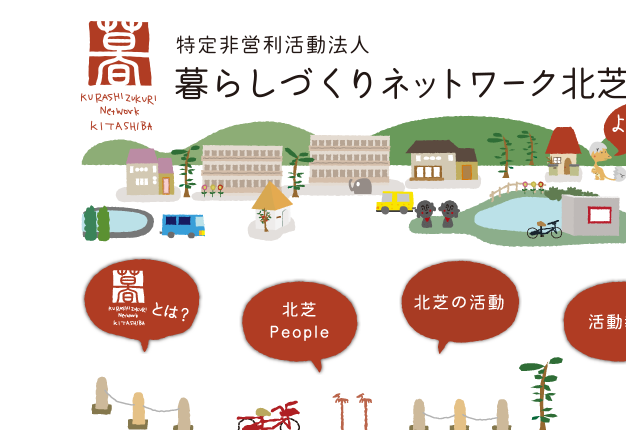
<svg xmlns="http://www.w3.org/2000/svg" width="626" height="430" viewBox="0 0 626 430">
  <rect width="100%" height="100%" fill="#ffffff"/>
  <image x="81" y="104" width="545" height="326" href="img1.png"/>
  <image x="81" y="21" width="545" height="110" href="img2.png"/>
  <image x="81" y="256" width="122" height="98" href="img3.png"/>
  <image x="239" y="278" width="122" height="97" href="img4.png"/>
  <image x="399" y="258" width="123" height="98" href="img5.png"/>
  <image x="560" y="278" width="66" height="87" href="img6.png"/>
</svg>
